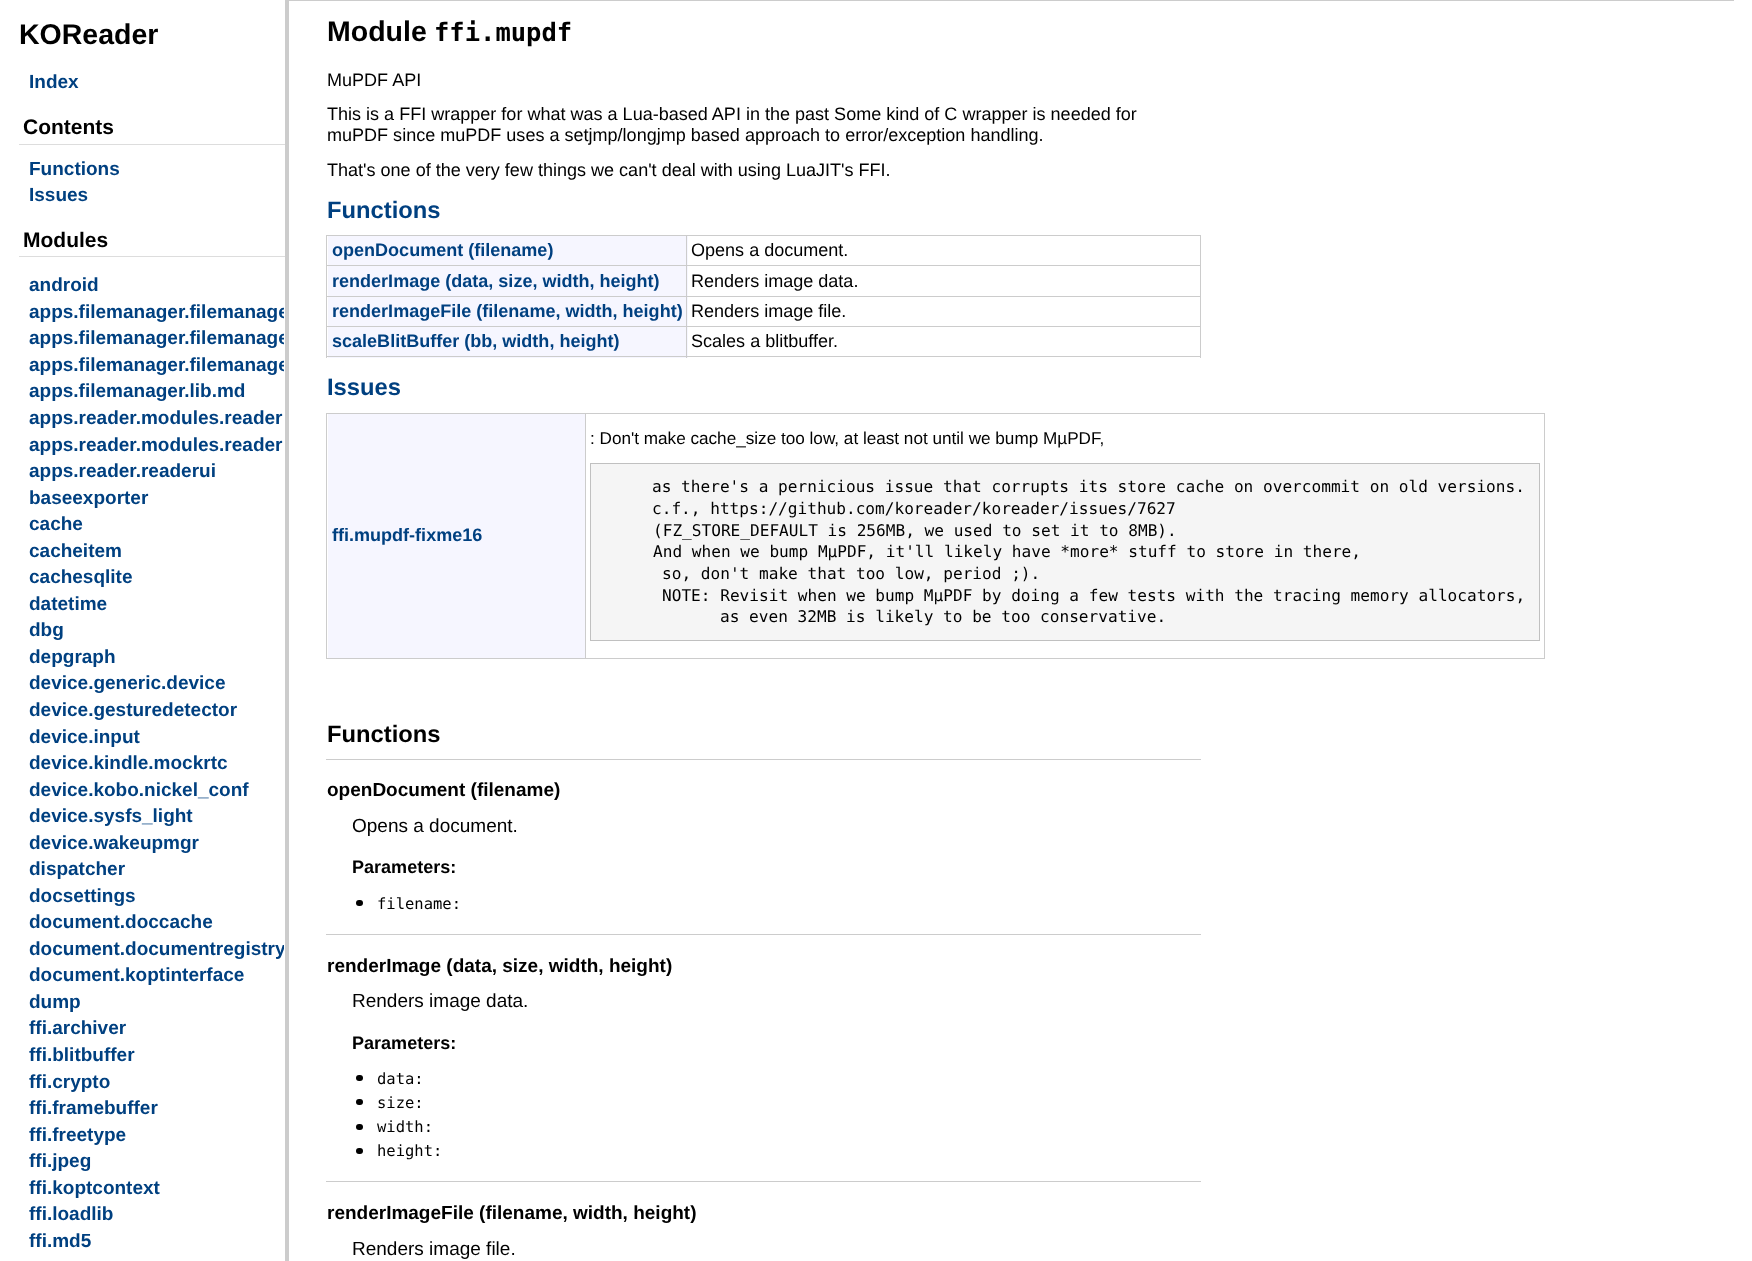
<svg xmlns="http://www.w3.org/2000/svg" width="1752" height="1261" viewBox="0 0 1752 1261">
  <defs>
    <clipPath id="clip1"><rect x="20" y="270" width="264" height="991"/></clipPath>
  </defs>
  <rect width="100%" height="100%" fill="#ffffff"/>
  <rect x="288" y="0" width="1446" height="1" fill="#cccccc"/>
  <rect x="285" y="0" width="3" height="1261" fill="#cccccc"/>
  <text x="19" y="44" font-family="Liberation Sans" font-size="28.5" font-weight="bold" fill="#000000">KOReader</text>
  <text x="29" y="88" font-family="Liberation Sans" font-size="19" font-weight="bold" fill="#004080">Index</text>
  <rect x="19" y="144" width="266" height="1" fill="#dddddd"/>
  <text x="23" y="134" font-family="Liberation Sans" font-size="21" font-weight="bold" fill="#000000">Contents</text>
  <text x="29" y="175" font-family="Liberation Sans" font-size="19" font-weight="bold" fill="#004080">Functions</text>
  <text x="29" y="201" font-family="Liberation Sans" font-size="19" font-weight="bold" fill="#004080">Issues</text>
  <rect x="19" y="256" width="266" height="1" fill="#dddddd"/>
  <text x="23" y="247" font-family="Liberation Sans" font-size="21" font-weight="bold" fill="#000000">Modules</text>
  <text x="29" y="291" font-family="Liberation Sans" font-size="19" font-weight="bold" fill="#004080">android</text>
  <g clip-path="url(#clip1)">
    <text x="29" y="318" font-family="Liberation Sans" font-size="19" font-weight="bold" fill="#004080">apps.filemanager.filemanage</text>
    <text x="29" y="344" font-family="Liberation Sans" font-size="19" font-weight="bold" fill="#004080">apps.filemanager.filemanage</text>
    <text x="29" y="371" font-family="Liberation Sans" font-size="19" font-weight="bold" fill="#004080">apps.filemanager.filemanage</text>
  </g>
  <text x="29" y="397" font-family="Liberation Sans" font-size="19" font-weight="bold" fill="#004080">apps.filemanager.lib.md</text>
  <text x="29" y="424" font-family="Liberation Sans" font-size="19" font-weight="bold" fill="#004080">apps.reader.modules.reader</text>
  <text x="29" y="451" font-family="Liberation Sans" font-size="19" font-weight="bold" fill="#004080">apps.reader.modules.reader</text>
  <text x="29" y="477" font-family="Liberation Sans" font-size="19" font-weight="bold" fill="#004080">apps.reader.readerui</text>
  <text x="29" y="504" font-family="Liberation Sans" font-size="19" font-weight="bold" fill="#004080">baseexporter</text>
  <text x="29" y="530" font-family="Liberation Sans" font-size="19" font-weight="bold" fill="#004080">cache</text>
  <text x="29" y="557" font-family="Liberation Sans" font-size="19" font-weight="bold" fill="#004080">cacheitem</text>
  <text x="29" y="583" font-family="Liberation Sans" font-size="19" font-weight="bold" fill="#004080">cachesqlite</text>
  <text x="29" y="610" font-family="Liberation Sans" font-size="19" font-weight="bold" fill="#004080">datetime</text>
  <text x="29" y="636" font-family="Liberation Sans" font-size="19" font-weight="bold" fill="#004080">dbg</text>
  <text x="29" y="663" font-family="Liberation Sans" font-size="19" font-weight="bold" fill="#004080">depgraph</text>
  <text x="29" y="689" font-family="Liberation Sans" font-size="19" font-weight="bold" fill="#004080">device.generic.device</text>
  <text x="29" y="716" font-family="Liberation Sans" font-size="19" font-weight="bold" fill="#004080">device.gesturedetector</text>
  <text x="29" y="743" font-family="Liberation Sans" font-size="19" font-weight="bold" fill="#004080">device.input</text>
  <text x="29" y="769" font-family="Liberation Sans" font-size="19" font-weight="bold" fill="#004080">device.kindle.mockrtc</text>
  <text x="29" y="796" font-family="Liberation Sans" font-size="19" font-weight="bold" fill="#004080">device.kobo.nickel_conf</text>
  <text x="29" y="822" font-family="Liberation Sans" font-size="19" font-weight="bold" fill="#004080">device.sysfs_light</text>
  <text x="29" y="849" font-family="Liberation Sans" font-size="19" font-weight="bold" fill="#004080">device.wakeupmgr</text>
  <text x="29" y="875" font-family="Liberation Sans" font-size="19" font-weight="bold" fill="#004080">dispatcher</text>
  <text x="29" y="902" font-family="Liberation Sans" font-size="19" font-weight="bold" fill="#004080">docsettings</text>
  <text x="29" y="928" font-family="Liberation Sans" font-size="19" font-weight="bold" fill="#004080">document.doccache</text>
  <g clip-path="url(#clip1)">
    <text x="29" y="955" font-family="Liberation Sans" font-size="19" font-weight="bold" fill="#004080">document.documentregistry</text>
  </g>
  <text x="29" y="981" font-family="Liberation Sans" font-size="19" font-weight="bold" fill="#004080">document.koptinterface</text>
  <text x="29" y="1008" font-family="Liberation Sans" font-size="19" font-weight="bold" fill="#004080">dump</text>
  <text x="29" y="1034" font-family="Liberation Sans" font-size="19" font-weight="bold" fill="#004080">ffi.archiver</text>
  <text x="29" y="1061" font-family="Liberation Sans" font-size="19" font-weight="bold" fill="#004080">ffi.blitbuffer</text>
  <text x="29" y="1088" font-family="Liberation Sans" font-size="19" font-weight="bold" fill="#004080">ffi.crypto</text>
  <text x="29" y="1114" font-family="Liberation Sans" font-size="19" font-weight="bold" fill="#004080">ffi.framebuffer</text>
  <text x="29" y="1141" font-family="Liberation Sans" font-size="19" font-weight="bold" fill="#004080">ffi.freetype</text>
  <text x="29" y="1167" font-family="Liberation Sans" font-size="19" font-weight="bold" fill="#004080">ffi.jpeg</text>
  <text x="29" y="1194" font-family="Liberation Sans" font-size="19" font-weight="bold" fill="#004080">ffi.koptcontext</text>
  <text x="29" y="1220" font-family="Liberation Sans" font-size="19" font-weight="bold" fill="#004080">ffi.loadlib</text>
  <text x="29" y="1247" font-family="Liberation Sans" font-size="19" font-weight="bold" fill="#004080">ffi.md5</text>
  <rect x="288" y="1" width="1" height="1260" fill="#cccccc"/>
  <text x="327" y="41" font-family="Liberation Sans" font-size="28.5" font-weight="bold" fill="#000000">Module</text>
  <text x="434" y="41" font-family="DejaVu Sans Mono" font-size="25.5" font-weight="bold" fill="#000000">ffi.mupdf</text>
  <text x="327" y="86" font-family="Liberation Sans" font-size="18.05" fill="#000000">MuPDF API</text>
  <text x="327" y="120" font-family="Liberation Sans" font-size="18.05" fill="#000000">This is a FFI wrapper for what was a Lua-based API in the past Some kind of C wrapper is needed for</text>
  <text x="327" y="141" font-family="Liberation Sans" font-size="18.05" fill="#000000">muPDF since muPDF uses a setjmp/longjmp based approach to error/exception handling.</text>
  <text x="327" y="176" font-family="Liberation Sans" font-size="18.05" fill="#000000">That's one of the very few things we can't deal with using LuaJIT's FFI.</text>
  <text x="327" y="218" font-family="Liberation Sans" font-size="23.75" font-weight="bold" fill="#004080">Functions</text>
  <rect x="326" y="235" width="875" height="1" fill="#cccccc"/>
  <rect x="1200" y="235" width="1" height="123" fill="#cccccc"/>
  <rect x="328" y="327" width="360" height="31" fill="#f6f6ff"/>
  <rect x="326" y="356" width="875" height="1" fill="#cccccc"/>
  <rect x="326" y="235" width="1" height="123" fill="#cccccc"/>
  <rect x="328" y="236" width="360" height="29" fill="#f6f6ff"/>
  <text x="332" y="256" font-family="Liberation Sans" font-size="18.05" font-weight="bold" fill="#004080">openDocument (filename)</text>
  <rect x="686" y="265" width="515" height="1" fill="#cccccc"/>
  <rect x="328" y="266" width="360" height="30" fill="#f6f6ff"/>
  <rect x="328" y="297" width="360" height="29" fill="#f6f6ff"/>
  <rect x="686" y="296" width="515" height="1" fill="#cccccc"/>
  <rect x="686" y="326" width="515" height="1" fill="#cccccc"/>
  <rect x="686" y="326" width="1" height="32" fill="#cccccc"/>
  <rect x="326" y="326" width="362" height="1" fill="#cccccc"/>
  <rect x="686" y="296" width="1" height="32" fill="#cccccc"/>
  <rect x="326" y="296" width="362" height="1" fill="#cccccc"/>
  <rect x="686" y="265" width="1" height="33" fill="#cccccc"/>
  <rect x="326" y="265" width="362" height="1" fill="#cccccc"/>
  <rect x="686" y="235" width="1" height="31" fill="#cccccc"/>
  <text x="691" y="256" font-family="Liberation Sans" font-size="18.05" fill="#000000">Opens a document.</text>
  <text x="332" y="287" font-family="Liberation Sans" font-size="18.05" font-weight="bold" fill="#004080">renderImage (data, size, width, height)</text>
  <text x="691" y="287" font-family="Liberation Sans" font-size="18.05" fill="#000000">Renders image data.</text>
  <text x="332" y="317" font-family="Liberation Sans" font-size="18.05" font-weight="bold" fill="#004080">renderImageFile (filename, width, height)</text>
  <text x="691" y="317" font-family="Liberation Sans" font-size="18.05" fill="#000000">Renders image file.</text>
  <text x="332" y="347" font-family="Liberation Sans" font-size="18.05" font-weight="bold" fill="#004080">scaleBlitBuffer (bb, width, height)</text>
  <text x="691" y="347" font-family="Liberation Sans" font-size="18.05" fill="#000000">Scales a blitbuffer.</text>
  <text x="327" y="395" font-family="Liberation Sans" font-size="23.75" font-weight="bold" fill="#004080">Issues</text>
  <rect x="326" y="413" width="1219" height="1" fill="#cccccc"/>
  <rect x="1544" y="413" width="1" height="246" fill="#cccccc"/>
  <rect x="326" y="658" width="1219" height="1" fill="#cccccc"/>
  <rect x="326" y="413" width="1" height="246" fill="#cccccc"/>
  <rect x="328" y="414" width="257" height="244" fill="#f6f6ff"/>
  <text x="332" y="541" font-family="Liberation Sans" font-size="18.05" font-weight="bold" fill="#004080">ffi.mupdf-fixme16</text>
  <rect x="585" y="413" width="1" height="246" fill="#cccccc"/>
  <text x="590" y="444" font-family="Liberation Sans" font-size="17.15" fill="#000000">: Don't make cache_size too low, at least not until we bump MµPDF,</text>
  <rect x="590.5" y="463.5" width="949" height="177" fill="#f5f5f5" stroke="#c0c0c0"/>
  <text x="652" y="492" font-family="DejaVu Sans Mono" font-size="16.13" fill="#000000">as there's a pernicious issue that corrupts its store cache on overcommit on old versions.</text>
  <text x="652" y="514" font-family="DejaVu Sans Mono" font-size="16.13" fill="#000000">c.f., https://github.com/koreader/koreader/issues/7627</text>
  <text x="653" y="536" font-family="DejaVu Sans Mono" font-size="16.13" fill="#000000">(FZ_STORE_DEFAULT is 256MB, we used to set it to 8MB).</text>
  <text x="653" y="557" font-family="DejaVu Sans Mono" font-size="16.13" fill="#000000">And when we bump MµPDF, it'll likely have *more* stuff to store in there,</text>
  <text x="662" y="579" font-family="DejaVu Sans Mono" font-size="16.13" fill="#000000">so, don't make that too low, period ;).</text>
  <text x="662" y="601" font-family="DejaVu Sans Mono" font-size="16.13" fill="#000000">NOTE: Revisit when we bump MµPDF by doing a few tests with the tracing memory allocators,</text>
  <text x="720" y="622" font-family="DejaVu Sans Mono" font-size="16.13" fill="#000000">as even 32MB is likely to be too conservative.</text>
  <text x="327" y="742" font-family="Liberation Sans" font-size="23.75" font-weight="bold" fill="#000000">Functions</text>
  <rect x="326" y="759" width="875" height="1" fill="#cccccc"/>
  <text x="327" y="796" font-family="Liberation Sans" font-size="19" font-weight="bold" fill="#000000">openDocument (filename)</text>
  <text x="352" y="832" font-family="Liberation Sans" font-size="19" fill="#000000">Opens a document.</text>
  <text x="352" y="873" font-family="Liberation Sans" font-size="18.05" font-weight="bold" fill="#000000">Parameters:</text>
  <rect x="356" y="900" width="7" height="6" rx="3" fill="#000000"/>
  <text x="377" y="909" font-family="DejaVu Sans Mono" font-size="15.5" fill="#000000">filename:</text>
  <rect x="326" y="934" width="875" height="1" fill="#cccccc"/>
  <text x="327" y="972" font-family="Liberation Sans" font-size="19" font-weight="bold" fill="#000000">renderImage (data, size, width, height)</text>
  <text x="352" y="1007" font-family="Liberation Sans" font-size="19" fill="#000000">Renders image data.</text>
  <text x="352" y="1049" font-family="Liberation Sans" font-size="18.05" font-weight="bold" fill="#000000">Parameters:</text>
  <rect x="356" y="1075" width="7" height="6" rx="3" fill="#000000"/>
  <text x="377" y="1084" font-family="DejaVu Sans Mono" font-size="15.5" fill="#000000">data:</text>
  <rect x="356" y="1099" width="7" height="6" rx="3" fill="#000000"/>
  <text x="377" y="1108" font-family="DejaVu Sans Mono" font-size="15.5" fill="#000000">size:</text>
  <rect x="356" y="1124" width="7" height="6" rx="3" fill="#000000"/>
  <text x="377" y="1132" font-family="DejaVu Sans Mono" font-size="15.5" fill="#000000">width:</text>
  <rect x="356" y="1148" width="7" height="6" rx="3" fill="#000000"/>
  <text x="377" y="1156" font-family="DejaVu Sans Mono" font-size="15.5" fill="#000000">height:</text>
  <rect x="326" y="1181" width="875" height="1" fill="#cccccc"/>
  <text x="327" y="1219" font-family="Liberation Sans" font-size="19" font-weight="bold" fill="#000000">renderImageFile (filename, width, height)</text>
  <text x="352" y="1255" font-family="Liberation Sans" font-size="19" fill="#000000">Renders image file.</text>
</svg>
